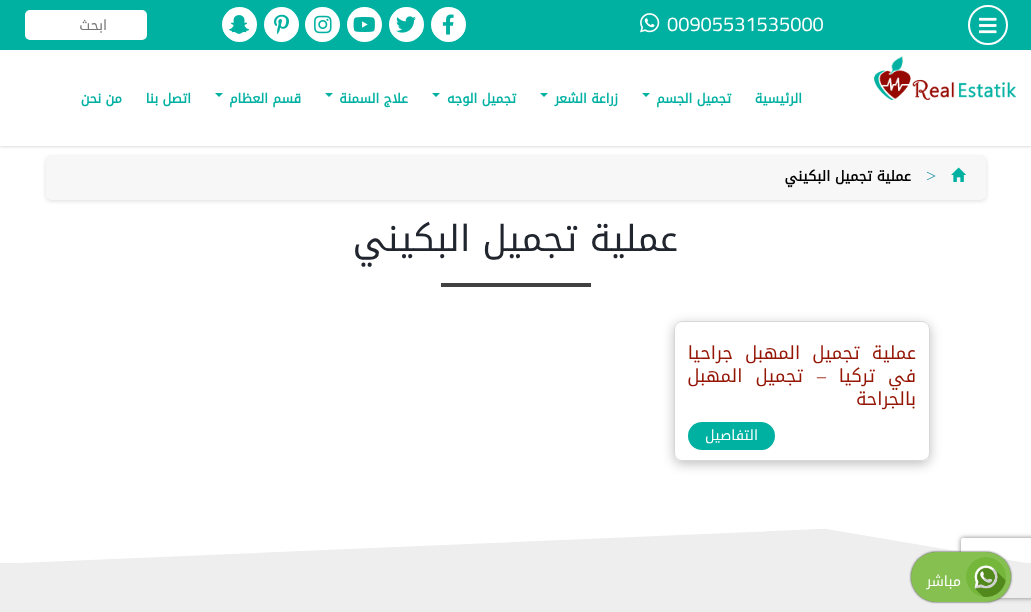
<svg xmlns="http://www.w3.org/2000/svg" width="1031" height="612" viewBox="0 0 1031 612">
  <defs>
    <clipPath id="clip1"><path d="M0 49H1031V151H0ZM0 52H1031V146H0Z" clip-rule="evenodd"/></clipPath>
    <filter id="blur1" x="-50%" y="-200%" width="200%" height="500%"><feGaussianBlur stdDeviation="1"/></filter>
    <filter id="blur2" x="-50%" y="-200%" width="200%" height="500%"><feGaussianBlur stdDeviation="2"/></filter>
    <clipPath id="clip2"><path d="M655 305H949V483H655ZM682 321H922C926.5 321 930 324.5 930 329V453C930 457.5 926.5 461 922 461H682C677.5 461 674 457.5 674 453V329C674 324.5 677.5 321 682 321Z" clip-rule="evenodd"/></clipPath>
    <filter id="blur3" x="-50%" y="-200%" width="200%" height="500%"><feGaussianBlur stdDeviation="6"/></filter>
    <clipPath id="clip3"><rect x="0" y="515" width="1031" height="50"/></clipPath>
    <clipPath id="clip4"><path d="M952 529H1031V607H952ZM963 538H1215C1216 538 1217 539 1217 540V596C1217 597 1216 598 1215 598H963C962 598 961 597 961 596V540C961 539 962 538 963 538Z" clip-rule="evenodd"/></clipPath>
    <filter id="blur4" x="-50%" y="-200%" width="200%" height="500%"><feGaussianBlur stdDeviation="2.5"/></filter>
  </defs>
  <rect width="100%" height="100%" fill="#ffffff"/>
  <g clip-path="url(#clip1)">
    <rect x="0" y="53" width="1031" height="94" fill="#dddddd" filter="url(#blur1)"/>
  </g>
  <rect x="0" y="0" width="1031" height="50" fill="#00b1a2"/>
  <circle cx="988" cy="25" r="19" fill="none" stroke="#ffffff" stroke-width="2"/>
  <image x="979" y="17" width="18" height="17" href="img1.png"/>
  <text x="667" y="31" font-family="Cairo" font-size="20" fill="#ffffff">00905531535000</text>
  <image x="640" y="13" width="20" height="20" href="img2.png"/>
  <circle cx="448.5" cy="24.5" r="17.5" fill="#ffffff"/>
  <image x="442" y="14" width="12" height="21" href="img3.png"/>
  <circle cx="406.5" cy="24.5" r="17.5" fill="#ffffff"/>
  <image x="396" y="16" width="20" height="17" href="img4.png"/>
  <circle cx="364.5" cy="24.5" r="17.5" fill="#ffffff"/>
  <image x="353" y="17" width="22" height="15" href="img5.png"/>
  <circle cx="322.5" cy="24.5" r="17.5" fill="#ffffff"/>
  <image x="314" y="15" width="18" height="19" href="img6.png"/>
  <circle cx="281.5" cy="24.5" r="17.5" fill="#ffffff"/>
  <image x="274" y="14" width="15" height="21" href="img7.png"/>
  <circle cx="239.5" cy="24.5" r="17.5" fill="#ffffff"/>
  <image x="229" y="15" width="20" height="19" href="img8.png"/>
  <rect x="25" y="10" width="122" height="30" rx="5" fill="#ffffff"/>
  <text x="107" y="30" font-family="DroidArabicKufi" font-size="14" direction="rtl" fill="#757575">ابحث</text>
  <image x="874" y="56" width="142" height="44" href="img9.png"/>
  <text x="802" y="103" font-family="DroidArabicKufi" font-size="13" font-weight="bold" direction="rtl" fill="#00b1a2">الرئيسية</text>
  <text x="731" y="103" font-family="DroidArabicKufi" font-size="13" font-weight="bold" direction="rtl" fill="#00b1a2">تجميل الجسم</text>
  <path d="M642 93H650L646 97Z" fill="#00b1a2"/>
  <text x="618" y="103" font-family="DroidArabicKufi" font-size="13" font-weight="bold" direction="rtl" fill="#00b1a2">زراعة الشعر</text>
  <path d="M540 93H548L544 97Z" fill="#00b1a2"/>
  <text x="516" y="103" font-family="DroidArabicKufi" font-size="13" font-weight="bold" direction="rtl" fill="#00b1a2">تجميل الوجه</text>
  <path d="M432 93H440L436 97Z" fill="#00b1a2"/>
  <text x="408" y="103" font-family="DroidArabicKufi" font-size="13" font-weight="bold" direction="rtl" fill="#00b1a2">علاج السمنة</text>
  <path d="M325 93H333L329 97Z" fill="#00b1a2"/>
  <text x="301" y="103" font-family="DroidArabicKufi" font-size="13" font-weight="bold" direction="rtl" fill="#00b1a2">قسم العظام</text>
  <path d="M215 93H223L219 97Z" fill="#00b1a2"/>
  <text x="191" y="103" font-family="DroidArabicKufi" font-size="13" font-weight="bold" direction="rtl" fill="#00b1a2">اتصل بنا</text>
  <text x="122" y="103" font-family="DroidArabicKufi" font-size="13" font-weight="bold" direction="rtl" fill="#00b1a2">من نحن</text>
  <rect x="46" y="157" width="940" height="44" rx="5" fill="#dddddd" filter="url(#blur2)"/>
  <rect x="46" y="156" width="940" height="44" rx="5" fill="#f7f7f7"/>
  <image x="951" y="167" width="15" height="15" href="img10.png"/>
  <text x="926" y="182" font-family="Liberation Serif" font-size="18" fill="#2495a6">&gt;</text>
  <text x="911" y="181" font-family="DroidArabicKufi" font-size="14" font-weight="bold" direction="rtl" fill="#000000">عملية تجميل البكيني</text>
  <text x="678" y="251" font-family="DroidArabicKufi" font-size="36" direction="rtl" fill="#21252e">عملية تجميل البكيني</text>
  <rect x="441" y="283" width="150" height="4" fill="#414142"/>
  <g clip-path="url(#clip2)">
    <rect x="674" y="324" width="256" height="140" rx="8" fill="#050a0f" fill-opacity="0.25" filter="url(#blur3)"/>
  </g>
  <rect x="674.5" y="321.5" width="255" height="139" rx="7.5" fill="none" stroke="#d8d8d8"/>
  <text x="916" y="359" word-spacing="6" font-family="DroidArabicKufi" font-size="18" direction="rtl" fill="#941504">عملية تجميل المهبل جراحيا</text>
  <text x="916" y="382" word-spacing="7" font-family="DroidArabicKufi" font-size="18" direction="rtl" fill="#941504">في تركيا</text>
  <text x="826" y="382" font-family="Liberation Serif" font-size="18" direction="rtl" fill="#941504">–</text>
  <text x="803" y="382" word-spacing="7" font-family="DroidArabicKufi" font-size="18" direction="rtl" fill="#941504">تجميل المهبل</text>
  <text x="916" y="405" font-family="DroidArabicKufi" font-size="18" direction="rtl" fill="#941504">بالجراحة</text>
  <rect x="688" y="422" width="87" height="28" rx="14" fill="#00b1a2"/>
  <text x="758" y="440" font-family="DroidArabicKufi" font-size="14" direction="rtl" fill="#ffffff">التفاصيل</text>
  <rect x="0" y="563" width="1031" height="49" fill="#eeeeee"/>
  <path d="M0 565L825 530L1031 565Z" fill="#eeeeee"/>
  <g clip-path="url(#clip3)">
    <path d="M0 565L825 530L1031 565Z" fill="none" stroke="#eeeeee" stroke-width="2.3"/>
  </g>
  <g clip-path="url(#clip4)">
    <rect x="961" y="538" width="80" height="60" rx="2" fill="#808080" filter="url(#blur4)"/>
  </g>
  <rect x="911" y="552" width="100" height="50" rx="25" fill="#333333" filter="url(#blur1)"/>
  <rect x="911" y="552" width="100" height="50" rx="25" fill="#86c051"/>
  <image x="966" y="557" width="40" height="40" href="img11.png"/>
  <text x="961" y="586" font-family="DroidArabicKufi" font-size="14" direction="rtl" fill="#ffffff">مباشر</text>
</svg>
